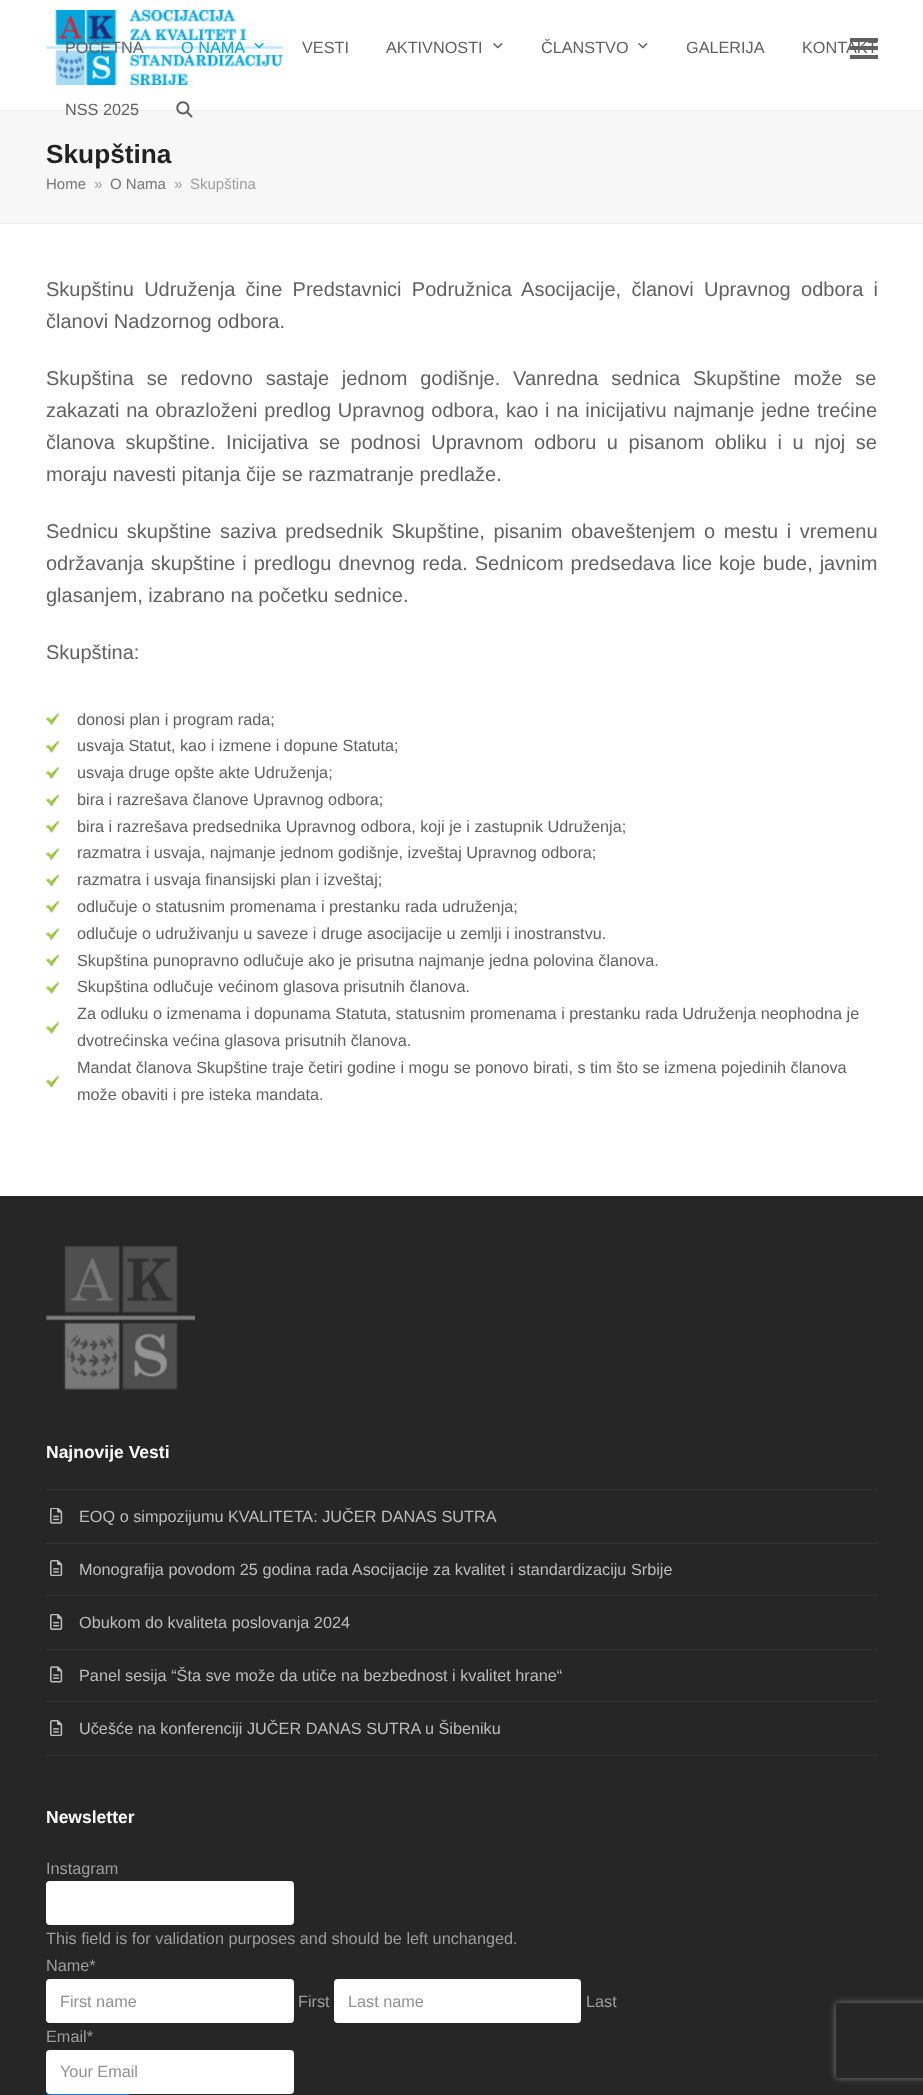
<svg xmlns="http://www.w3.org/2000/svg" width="923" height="2095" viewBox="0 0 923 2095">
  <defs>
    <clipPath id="clip1"><path d="M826 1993H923V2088H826ZM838.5 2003H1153.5C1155 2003 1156 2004 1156 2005.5V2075.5C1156 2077 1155 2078 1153.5 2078H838.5C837 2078 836 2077 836 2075.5V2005.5C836 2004 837 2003 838.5 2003Z" clip-rule="evenodd"/></clipPath>
    <filter id="blur1" x="-50%" y="-200%" width="200%" height="500%"><feGaussianBlur stdDeviation="3"/></filter>
  </defs>
  <rect width="100%" height="100%" fill="#ffffff"/>
  <image x="46" y="10" width="238" height="75" href="img1.png"/>
  <text x="65" y="53" font-family="Liberation Sans" font-size="16.25" fill="#616161">POČETNA</text>
  <text x="181" y="53" font-family="Liberation Sans" font-size="16.25" fill="#02a6df">O NAMA</text>
  <image x="254" y="43" width="10" height="6" href="img2.png"/>
  <text x="302" y="53" font-family="Liberation Sans" font-size="16.25" fill="#616161">VESTI</text>
  <text x="386" y="53" font-family="Liberation Sans" font-size="16.25" fill="#616161">AKTIVNOSTI</text>
  <image x="493" y="43" width="10" height="6" href="img3.png"/>
  <text x="541" y="53" font-family="Liberation Sans" font-size="16.25" fill="#616161">ČLANSTVO</text>
  <image x="638" y="43" width="10" height="6" href="img3.png"/>
  <text x="686" y="53" font-family="Liberation Sans" font-size="16.25" fill="#616161">GALERIJA</text>
  <text x="802" y="53" font-family="Liberation Sans" font-size="16.25" fill="#616161">KONTAKT</text>
  <rect x="0" y="111" width="923" height="112" fill="#f7f7f7"/>
  <rect x="0" y="110" width="923" height="1" fill="#eeeeee"/>
  <text x="65" y="115" font-family="Liberation Sans" font-size="16.25" fill="#616161">NSS 2025</text>
  <image x="176" y="101" width="17" height="17" href="img4.png"/>
  <rect x="850" y="46" width="28" height="4" fill="#616161"/>
  <rect x="850" y="38" width="28" height="4" fill="#616161"/>
  <rect x="850" y="55" width="28" height="4" fill="#616161"/>
  <rect x="0" y="223" width="923" height="1" fill="#eeeeee"/>
  <text x="46" y="163" font-family="Liberation Sans" font-size="26.25" font-weight="bold" fill="#222222">Skupština</text>
  <text x="46" y="189" font-family="Liberation Sans" font-size="15" fill="#757575">Home</text>
  <text x="94" y="189" font-family="Liberation Sans" font-size="15" fill="#9e9e9e">»</text>
  <text x="110" y="189" font-family="Liberation Sans" font-size="15" fill="#757575">O Nama</text>
  <text x="174" y="189" font-family="Liberation Sans" font-size="15" fill="#9e9e9e">»</text>
  <text x="190" y="189" font-family="Liberation Sans" font-size="15" fill="#9e9e9e">Skupština</text>
  <text x="46" y="296" word-spacing="4.75" font-family="Liberation Sans" font-size="20" fill="#616161">Skupštinu Udruženja čine Predstavnici Podružnica Asocijacije, članovi Upravnog odbora i</text>
  <text x="46" y="328" font-family="Liberation Sans" font-size="20" fill="#616161">članovi Nadzornog odbora.</text>
  <text x="46" y="385" word-spacing="7.25" font-family="Liberation Sans" font-size="20" fill="#616161">Skupština se redovno sastaje jednom godišnje. Vanredna sednica Skupštine može se</text>
  <text x="46" y="417" word-spacing="1.25" font-family="Liberation Sans" font-size="20" fill="#616161">zakazati na obrazloženi predlog Upravnog odbora, kao i na inicijativu najmanje jedne trećine</text>
  <text x="46" y="449" word-spacing="5" font-family="Liberation Sans" font-size="20" fill="#616161">članova skupštine. Inicijativa se podnosi Upravnom odboru u pisanom obliku i u njoj se</text>
  <text x="46" y="481" font-family="Liberation Sans" font-size="20" fill="#616161">moraju navesti pitanja čije se razmatranje predlaže.</text>
  <text x="46" y="538" word-spacing="3" font-family="Liberation Sans" font-size="20" fill="#616161">Sednicu skupštine saziva predsednik Skupštine, pisanim obaveštenjem o mestu i vremenu</text>
  <text x="46" y="570" word-spacing="1.4" font-family="Liberation Sans" font-size="20" fill="#616161">održavanja skupštine i predlogu dnevnog reda. Sednicom predsedava lice koje bude, javnim</text>
  <text x="46" y="602" font-family="Liberation Sans" font-size="20" fill="#616161">glasanjem, izabrano na početku sednice.</text>
  <text x="46" y="659" font-family="Liberation Sans" font-size="20" fill="#616161">Skupština:</text>
  <image x="46" y="712" width="13" height="13" href="img5.png"/>
  <text x="77" y="725" font-family="Liberation Sans" font-size="16.25" fill="#616161">donosi plan i program rada;</text>
  <image x="46" y="740" width="13" height="13" href="img6.png"/>
  <text x="77" y="751" font-family="Liberation Sans" font-size="16.25" fill="#616161">usvaja Statut, kao i izmene i dopune Statuta;</text>
  <image x="46" y="766" width="13" height="13" href="img7.png"/>
  <text x="77" y="778" font-family="Liberation Sans" font-size="16.25" fill="#616161">usvaja druge opšte akte Udruženja;</text>
  <image x="46" y="793" width="13" height="14" href="img8.png"/>
  <text x="77" y="805" font-family="Liberation Sans" font-size="16.25" fill="#616161">bira i razrešava članove Upravnog odbora;</text>
  <image x="46" y="820" width="13" height="13" href="img6.png"/>
  <text x="77" y="832" font-family="Liberation Sans" font-size="16.25" fill="#616161">bira i razrešava predsednika Upravnog odbora, koji je i zastupnik Udruženja;</text>
  <image x="46" y="847" width="13" height="13" href="img5.png"/>
  <text x="77" y="858" font-family="Liberation Sans" font-size="16.25" fill="#616161">razmatra i usvaja, najmanje jednom godišnje, izveštaj Upravnog odbora;</text>
  <image x="46" y="873" width="13" height="14" href="img8.png"/>
  <text x="77" y="885" font-family="Liberation Sans" font-size="16.25" fill="#616161">razmatra i usvaja finansijski plan i izveštaj;</text>
  <image x="46" y="900" width="13" height="13" href="img6.png"/>
  <text x="77" y="912" font-family="Liberation Sans" font-size="16.25" fill="#616161">odlučuje o statusnim promenama i prestanku rada udruženja;</text>
  <image x="46" y="927" width="13" height="13" href="img5.png"/>
  <text x="77" y="939" font-family="Liberation Sans" font-size="16.25" fill="#616161">odlučuje o udruživanju u saveze i druge asocijacije u zemlji i inostranstvu.</text>
  <image x="46" y="953" width="13" height="14" href="img8.png"/>
  <text x="77" y="966" font-family="Liberation Sans" font-size="16.25" fill="#616161">Skupština punopravno odlučuje ako je prisutna najmanje jedna polovina članova.</text>
  <image x="46" y="981" width="13" height="13" href="img9.png"/>
  <text x="77" y="992" font-family="Liberation Sans" font-size="16.25" fill="#616161">Skupština odlučuje većinom glasova prisutnih članova.</text>
  <image x="46" y="1021" width="13" height="13" href="img9.png"/>
  <text x="77" y="1019" font-family="Liberation Sans" font-size="16.25" fill="#616161">Za odluku o izmenama i dopunama Statuta, statusnim promenama i prestanku rada Udruženja neophodna je</text>
  <text x="77" y="1046" font-family="Liberation Sans" font-size="16.25" fill="#616161">dvotrećinska većina glasova prisutnih članova.</text>
  <image x="46" y="1075" width="13" height="13" href="img6.png"/>
  <text x="77" y="1073" font-family="Liberation Sans" font-size="16.25" fill="#616161">Mandat članova Skupštine traje četiri godine i mogu se ponovo birati, s tim što se izmena pojedinih članova</text>
  <text x="77" y="1100" font-family="Liberation Sans" font-size="16.25" fill="#616161">može obaviti i pre isteka mandata.</text>
  <rect x="0" y="1196" width="923" height="899" fill="#262626"/>
  <image x="46" y="1246" width="149" height="144" href="img10.png"/>
  <text x="46" y="1458" font-family="Liberation Sans" font-size="17.5" font-weight="bold" fill="#ffffff">Najnovije Vesti</text>
  <rect x="46" y="1489" width="832" height="1" fill="#333333"/>
  <rect x="46" y="1543" width="832" height="1" fill="#333333"/>
  <image x="50" y="1508" width="13" height="16" href="img11.png"/>
  <text x="79" y="1522" font-family="Liberation Sans" font-size="16.25" fill="#bdbdbd">EOQ o simpozijumu KVALITETA: JUČER DANAS SUTRA</text>
  <rect x="46" y="1595" width="832" height="1" fill="#333333"/>
  <image x="50" y="1560" width="13" height="16" href="img12.png"/>
  <text x="79" y="1575" font-family="Liberation Sans" font-size="16.25" fill="#bdbdbd">Monografija povodom 25 godina rada Asocijacije za kvalitet i standardizaciju Srbije</text>
  <rect x="46" y="1649" width="832" height="1" fill="#333333"/>
  <image x="50" y="1614" width="13" height="16" href="img13.png"/>
  <text x="79" y="1628" font-family="Liberation Sans" font-size="16.25" fill="#bdbdbd">Obukom do kvaliteta poslovanja 2024</text>
  <rect x="46" y="1701" width="832" height="1" fill="#333333"/>
  <image x="50" y="1666" width="13" height="17" href="img14.png"/>
  <text x="79" y="1681" font-family="Liberation Sans" font-size="16.25" fill="#bdbdbd">Panel sesija “Šta sve može da utiče na bezbednost i kvalitet hrane“</text>
  <rect x="46" y="1755" width="832" height="1" fill="#333333"/>
  <image x="50" y="1720" width="13" height="16" href="img12.png"/>
  <text x="79" y="1734" font-family="Liberation Sans" font-size="16.25" fill="#bdbdbd">Učešće na konferenciji JUČER DANAS SUTRA u Šibeniku</text>
  <text x="46" y="1823" font-family="Liberation Sans" font-size="17.5" font-weight="bold" fill="#ffffff">Newsletter</text>
  <text x="46" y="1874" font-family="Liberation Sans" font-size="16.25" fill="#9e9e9e">Instagram</text>
  <rect x="46" y="1881" width="248" height="44" rx="4" fill="#ffffff"/>
  <rect x="46.5" y="1881.5" width="247" height="43" fill="none" stroke="#ffffff" stroke-opacity="0.06"/>
  <text x="46" y="1944" font-family="Liberation Sans" font-size="16.25" fill="#9e9e9e">This field is for validation purposes and should be left unchanged.</text>
  <text x="46" y="1971" font-family="Liberation Sans" font-size="16.25" fill="#9e9e9e">Name*</text>
  <rect x="46" y="1979" width="248" height="44" rx="4" fill="#ffffff"/>
  <rect x="46.5" y="1979.5" width="247" height="43" fill="none" stroke="#ffffff" stroke-opacity="0.06"/>
  <text x="60" y="2007" font-family="Liberation Sans" font-size="16.25" fill="#909090">First name</text>
  <text x="298" y="2007" font-family="Liberation Sans" font-size="16.25" fill="#9e9e9e">First</text>
  <rect x="334" y="1979" width="247" height="44" rx="4" fill="#ffffff"/>
  <rect x="334.5" y="1979.5" width="246" height="43" fill="none" stroke="#ffffff" stroke-opacity="0.06"/>
  <text x="348" y="2007" font-family="Liberation Sans" font-size="16.25" fill="#909090">Last name</text>
  <text x="586" y="2007" font-family="Liberation Sans" font-size="16.25" fill="#9e9e9e">Last</text>
  <text x="46" y="2042" font-family="Liberation Sans" font-size="16.25" fill="#9e9e9e">Email*</text>
  <rect x="46" y="2050" width="248" height="44" rx="4" fill="#ffffff"/>
  <rect x="46.5" y="2050.5" width="247" height="43" fill="none" stroke="#ffffff" stroke-opacity="0.06"/>
  <text x="60" y="2077" font-family="Liberation Sans" font-size="16.25" fill="#909090">Your Email</text>
  <rect x="46" y="2094" width="85" height="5" rx="4" fill="#1a73e8"/>
  <g clip-path="url(#clip1)">
    <rect x="836" y="2003" width="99" height="75" rx="2.5" fill="#808080" filter="url(#blur1)"/>
  </g>
</svg>
